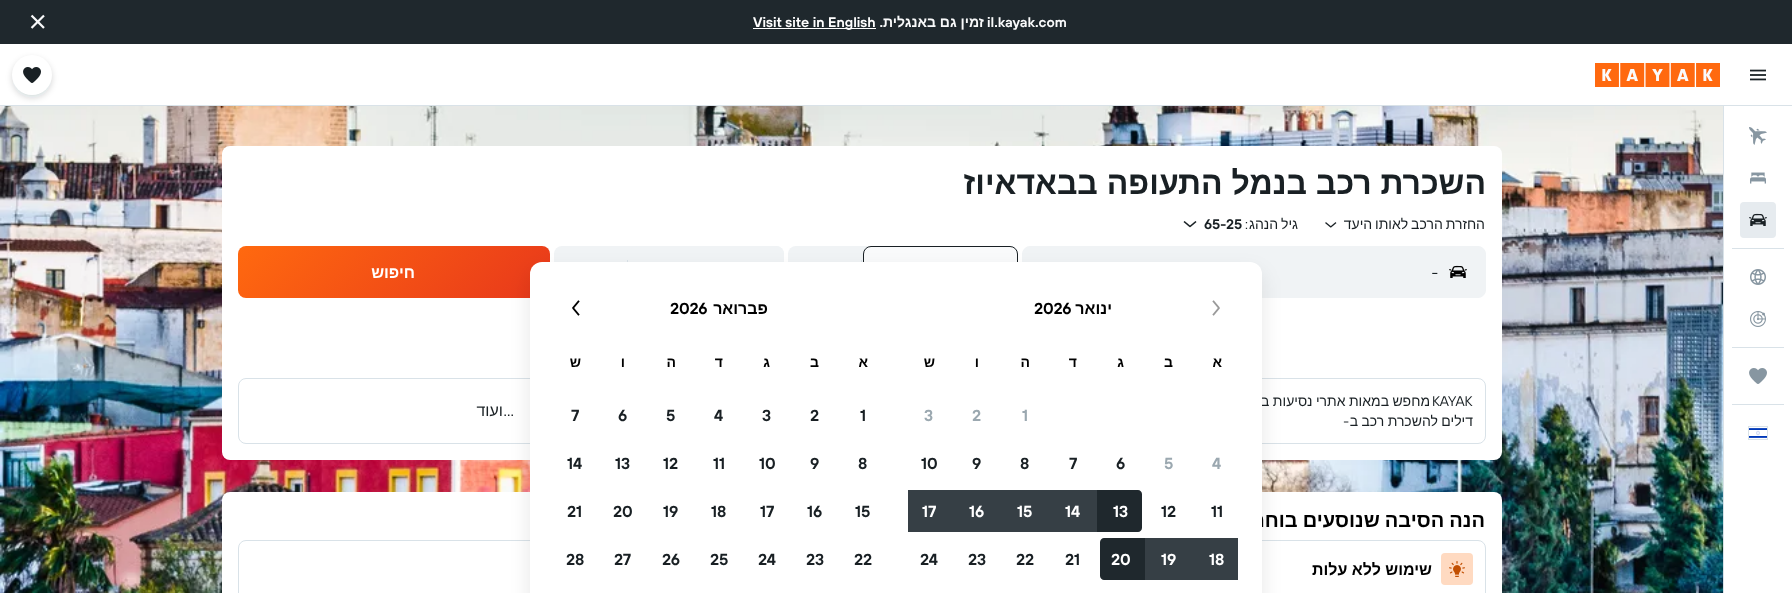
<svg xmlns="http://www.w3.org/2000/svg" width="1792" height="593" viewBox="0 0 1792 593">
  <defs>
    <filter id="blur1" x="-50%" y="-200%" width="200%" height="500%"><feGaussianBlur stdDeviation="3"/></filter>
    <clipPath id="clip1"><rect x="1343" y="214" width="143" height="20"/></clipPath>
    <linearGradient id="g1" gradientUnits="userSpaceOnUse" x1="303" y1="181" x2="485" y2="363"><stop offset="0" stop-color="#ff690f"/><stop offset="1" stop-color="#e8381b"/></linearGradient>
    <filter id="blur2" x="-50%" y="-200%" width="200%" height="500%"><feGaussianBlur stdDeviation="10"/></filter>
  </defs>
  <rect width="100%" height="100%" fill="#ffffff"/>
  <rect x="0" y="0" width="1792" height="44" fill="#1f282d"/>
  <text x="987" y="27" font-family="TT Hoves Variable" font-size="14" font-weight="600" fill="#f9fafb">il.kayak.com</text>
  <text x="984" y="27" font-family="Liberation Sans" font-size="14" font-weight="bold" direction="rtl" fill="#f9fafb">זמין גם באנגלית</text>
  <text x="883" y="27" font-family="TT Hoves Variable" font-size="14" font-weight="600" direction="rtl" fill="#f9fafb">.</text>
  <rect x="753" y="28" width="123" height="1" fill="#ffffff"/>
  <text x="753" y="27" font-family="TT Hoves Variable" font-size="14" font-weight="600" fill="#ffffff">Visit site in English</text>
  <image x="30" y="14" width="15" height="15" href="img1.png"/>
  <rect x="0" y="105" width="1792" height="1" fill="#d9e2e8"/>
  <image x="1750" y="69" width="16" height="12" href="img2.png"/>
  <image x="1595" y="63" width="125" height="24" href="img3.png"/>
  <image x="0" y="106" width="1723" height="487" href="img12.png"/>
  <rect x="12" y="58" width="40" height="40" rx="20" fill="#192024" fill-opacity="0.16" filter="url(#blur1)"/>
  <circle cx="32" cy="75" r="20" fill="#ffffff"/>
  <image x="23" y="67" width="18" height="16" href="img4.png"/>
  <rect x="1723" y="106" width="1" height="487" fill="#d9e2e8"/>
  <image x="1749" y="127" width="18" height="18" href="img5.png"/>
  <image x="1750" y="172" width="16" height="12" href="img6.png"/>
  <rect x="1740" y="202" width="36" height="36" rx="4" fill="#e6ebef"/>
  <image x="1749" y="213" width="18" height="13" href="img7.png"/>
  <rect x="1732" y="248" width="52" height="1" fill="#d9e2e8"/>
  <image x="1750" y="269" width="16" height="16" href="img8.png"/>
  <image x="1750" y="311" width="16" height="16" href="img9.png"/>
  <rect x="1732" y="347" width="52" height="1" fill="#d9e2e8"/>
  <image x="1749" y="368" width="18" height="16" href="img10.png"/>
  <rect x="1732" y="404" width="52" height="1" fill="#d9e2e8"/>
  <rect x="1748.5" y="426.5" width="19" height="13" fill="none" stroke="#d9e2e8"/>
  <image x="1749" y="428" width="18" height="10" href="img11.png"/>
  <rect x="222" y="146" width="1280" height="314" rx="8" fill="#ffffff"/>
  <text x="1486" y="194" font-family="Liberation Sans" font-size="32" font-weight="bold" direction="rtl" fill="#192024">השכרת רכב בנמל התעופה בבאדאיוז</text>
  <g clip-path="url(#clip1)">
    <text x="1485" y="229" word-spacing="-1" font-family="Liberation Sans" font-size="14" direction="rtl" fill="#192024">החזרת הרכב לאותו היעד</text>
  </g>
  <image x="1325" y="222" width="12" height="6" href="img13.png"/>
  <text x="1298" y="229" word-spacing="-1" font-family="Liberation Sans" font-size="14" direction="rtl" fill="#192024">גיל הנהג</text>
  <text x="1248" y="229" font-family="TT Hoves Variable" font-size="14" direction="rtl" fill="#192024">:</text>
  <text x="1204" y="229" font-family="TT Hoves Variable" font-size="14" font-weight="600" fill="#192024">65-25</text>
  <image x="1183" y="221" width="14" height="7" href="img14.png"/>
  <rect x="1022.5" y="246.5" width="463" height="51" rx="7.5" fill="#f0f3f5" stroke="#f0f3f5"/>
  <image x="1449" y="265" width="18" height="13" href="img15.png"/>
  <text x="1438" y="278" font-family="TT Hoves Variable" font-size="16" direction="rtl" fill="#192024">-</text>
  <rect x="788" y="246" width="230" height="52" rx="8" fill="#f0f3f5"/>
  <rect x="863.5" y="246.5" width="154" height="51" rx="7.5" fill="#f9fafb" stroke="#192024"/>
  <rect x="861" y="260" width="1" height="2" fill="#d9e2e8"/>
  <rect x="554" y="246" width="230" height="52" rx="8" fill="#f0f3f5"/>
  <rect x="629" y="246" width="155" height="52" rx="8" fill="#f0f3f5"/>
  <rect x="627" y="260" width="1" height="2" fill="#d9e2e8"/>
  <rect x="238" y="246" width="312" height="52" rx="8" fill="url(#g1)"/>
  <text x="415" y="278" font-family="Liberation Sans" font-size="16" font-weight="bold" direction="rtl" fill="#ffffff">חיפוש</text>
  <rect x="238.5" y="378.5" width="1247" height="65" rx="7.5" fill="none" stroke="#d9e2e8"/>
  <text x="1432" y="406" font-family="TT Hoves Variable" font-size="14" fill="#192024">KAYAK</text>
  <text x="1430" y="406" word-spacing="-0.5" font-family="Liberation Sans" font-size="14" direction="rtl" fill="#192024">מחפש במאות אתרי נסיעות בו</text>
  <text x="1473" y="426" word-spacing="-0.5" font-family="Liberation Sans" font-size="14" direction="rtl" fill="#192024">דילים להשכרת רכב ב</text>
  <text x="1349" y="426" font-family="TT Hoves Variable" font-size="14" direction="rtl" fill="#192024">-</text>
  <text x="514" y="416" font-family="TT Hoves Variable" font-size="16" direction="rtl" fill="#192024">...</text>
  <text x="503" y="416" font-family="Liberation Sans" font-size="16" direction="rtl" fill="#192024">ועוד</text>
  <rect x="222" y="492" width="1280" height="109" rx="8" fill="#ffffff"/>
  <text x="1485" y="527" word-spacing="-0.5" font-family="Liberation Sans" font-size="20" font-weight="bold" direction="rtl" fill="#000000">הנה הסיבה שנוסעים בוחרים</text>
  <rect x="1078.5" y="540.5" width="407" height="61" rx="7.5" fill="none" stroke="#d9e2e8"/>
  <rect x="1441" y="553" width="32" height="32" rx="4" fill="#ffdac1"/>
  <image x="1449" y="561" width="16" height="16" href="img16.png"/>
  <text x="1432" y="575" font-family="Liberation Sans" font-size="16" font-weight="bold" direction="rtl" fill="#000000">שימוש ללא עלות</text>
  <rect x="238.5" y="540.5" width="407" height="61" rx="7.5" fill="none" stroke="#d9e2e8"/>
  <rect x="530" y="272" width="732" height="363" rx="12" fill="#192024" fill-opacity="0.1" filter="url(#blur2)"/>
  <rect x="530" y="262" width="732" height="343" rx="12" fill="#ffffff"/>
  <image x="1212" y="300" width="8" height="16" href="img17.png"/>
  <image x="572" y="300" width="8" height="16" href="img18.png"/>
  <text x="1112" y="314" font-family="Liberation Sans" font-size="16" font-weight="bold" direction="rtl" fill="#000000">ינואר</text>
  <text x="1034" y="314" font-family="TT Hoves Variable" font-size="16" font-weight="600" fill="#000000">2026</text>
  <text x="1222" y="367" font-family="Liberation Sans" font-size="14" font-weight="bold" direction="rtl" fill="#000000">א</text>
  <text x="1173" y="367" font-family="Liberation Sans" font-size="14" font-weight="bold" direction="rtl" fill="#000000">ב</text>
  <text x="1124" y="367" font-family="Liberation Sans" font-size="14" font-weight="bold" direction="rtl" fill="#000000">ג</text>
  <text x="1077" y="367" font-family="Liberation Sans" font-size="14" font-weight="bold" direction="rtl" fill="#000000">ד</text>
  <text x="1030" y="367" font-family="Liberation Sans" font-size="14" font-weight="bold" direction="rtl" fill="#000000">ה</text>
  <text x="979" y="367" font-family="Liberation Sans" font-size="14" font-weight="bold" direction="rtl" fill="#000000">ו</text>
  <text x="935" y="367" font-family="Liberation Sans" font-size="14" font-weight="bold" direction="rtl" fill="#000000">ש</text>
  <text x="1022" y="421" font-family="TT Hoves Variable" font-size="16" font-weight="600" fill="#9ba8b0">1</text>
  <text x="972" y="421" font-family="TT Hoves Variable" font-size="16" font-weight="600" fill="#9ba8b0">2</text>
  <text x="924" y="421" font-family="TT Hoves Variable" font-size="16" font-weight="600" fill="#9ba8b0">3</text>
  <text x="1212" y="469" font-family="TT Hoves Variable" font-size="16" font-weight="600" fill="#9ba8b0">4</text>
  <text x="1164" y="469" font-family="TT Hoves Variable" font-size="16" font-weight="600" fill="#9ba8b0">5</text>
  <text x="1116" y="469" font-family="TT Hoves Variable" font-size="16" font-weight="600" fill="#192024">6</text>
  <text x="1069" y="469" font-family="TT Hoves Variable" font-size="16" font-weight="600" fill="#192024">7</text>
  <text x="1020" y="469" font-family="TT Hoves Variable" font-size="16" font-weight="600" fill="#192024">8</text>
  <text x="972" y="469" font-family="TT Hoves Variable" font-size="16" font-weight="600" fill="#192024">9</text>
  <text x="921" y="469" font-family="TT Hoves Variable" font-size="16" font-weight="600" fill="#192024">10</text>
  <text x="1211" y="517" font-family="TT Hoves Variable" font-size="16" font-weight="600" fill="#192024">11</text>
  <text x="1161" y="517" font-family="TT Hoves Variable" font-size="16" font-weight="600" fill="#192024">12</text>
  <path d="M1097 490H1138C1140 490 1142 492 1142 494V528C1142 530 1140 532 1138 532H1097Z" fill="#1f282d"/>
  <text x="1113" y="517" font-family="TT Hoves Variable" font-size="16" font-weight="600" fill="#ffffff">13</text>
  <rect x="908" y="490" width="189" height="42" fill="#363f45"/>
  <text x="1065" y="517" font-family="TT Hoves Variable" font-size="16" font-weight="600" fill="#ffffff">14</text>
  <text x="1017" y="517" font-family="TT Hoves Variable" font-size="16" font-weight="600" fill="#ffffff">15</text>
  <text x="969" y="517" font-family="TT Hoves Variable" font-size="16" font-weight="600" fill="#ffffff">16</text>
  <text x="922" y="517" font-family="TT Hoves Variable" font-size="16" font-weight="600" fill="#ffffff">17</text>
  <rect x="1145" y="538" width="93" height="42" fill="#363f45"/>
  <text x="1209" y="565" font-family="TT Hoves Variable" font-size="16" font-weight="600" fill="#ffffff">18</text>
  <text x="1161" y="565" font-family="TT Hoves Variable" font-size="16" font-weight="600" fill="#ffffff">19</text>
  <path d="M1104 538H1145V580H1104C1102 580 1100 578 1100 576V542C1100 540 1102 538 1104 538Z" fill="#1f282d"/>
  <text x="1111" y="565" font-family="TT Hoves Variable" font-size="16" font-weight="600" fill="#ffffff">20</text>
  <text x="1065" y="565" font-family="TT Hoves Variable" font-size="16" font-weight="600" fill="#192024">21</text>
  <text x="1016" y="565" font-family="TT Hoves Variable" font-size="16" font-weight="600" fill="#192024">22</text>
  <text x="968" y="565" font-family="TT Hoves Variable" font-size="16" font-weight="600" fill="#192024">23</text>
  <text x="920" y="565" font-family="TT Hoves Variable" font-size="16" font-weight="600" fill="#192024">24</text>
  <text x="768" y="314" font-family="Liberation Sans" font-size="16" font-weight="bold" direction="rtl" fill="#000000">פברואר</text>
  <text x="670" y="314" font-family="TT Hoves Variable" font-size="16" font-weight="600" fill="#000000">2026</text>
  <text x="868" y="367" font-family="Liberation Sans" font-size="14" font-weight="bold" direction="rtl" fill="#000000">א</text>
  <text x="819" y="367" font-family="Liberation Sans" font-size="14" font-weight="bold" direction="rtl" fill="#000000">ב</text>
  <text x="770" y="367" font-family="Liberation Sans" font-size="14" font-weight="bold" direction="rtl" fill="#000000">ג</text>
  <text x="723" y="367" font-family="Liberation Sans" font-size="14" font-weight="bold" direction="rtl" fill="#000000">ד</text>
  <text x="676" y="367" font-family="Liberation Sans" font-size="14" font-weight="bold" direction="rtl" fill="#000000">ה</text>
  <text x="625" y="367" font-family="Liberation Sans" font-size="14" font-weight="bold" direction="rtl" fill="#000000">ו</text>
  <text x="581" y="367" font-family="Liberation Sans" font-size="14" font-weight="bold" direction="rtl" fill="#000000">ש</text>
  <text x="860" y="421" font-family="TT Hoves Variable" font-size="16" font-weight="600" fill="#192024">1</text>
  <text x="810" y="421" font-family="TT Hoves Variable" font-size="16" font-weight="600" fill="#192024">2</text>
  <text x="762" y="421" font-family="TT Hoves Variable" font-size="16" font-weight="600" fill="#192024">3</text>
  <text x="714" y="421" font-family="TT Hoves Variable" font-size="16" font-weight="600" fill="#192024">4</text>
  <text x="666" y="421" font-family="TT Hoves Variable" font-size="16" font-weight="600" fill="#192024">5</text>
  <text x="618" y="421" font-family="TT Hoves Variable" font-size="16" font-weight="600" fill="#192024">6</text>
  <text x="571" y="421" font-family="TT Hoves Variable" font-size="16" font-weight="600" fill="#192024">7</text>
  <text x="858" y="469" font-family="TT Hoves Variable" font-size="16" font-weight="600" fill="#192024">8</text>
  <text x="810" y="469" font-family="TT Hoves Variable" font-size="16" font-weight="600" fill="#192024">9</text>
  <text x="759" y="469" font-family="TT Hoves Variable" font-size="16" font-weight="600" fill="#192024">10</text>
  <text x="713" y="469" font-family="TT Hoves Variable" font-size="16" font-weight="600" fill="#192024">11</text>
  <text x="663" y="469" font-family="TT Hoves Variable" font-size="16" font-weight="600" fill="#192024">12</text>
  <text x="615" y="469" font-family="TT Hoves Variable" font-size="16" font-weight="600" fill="#192024">13</text>
  <text x="567" y="469" font-family="TT Hoves Variable" font-size="16" font-weight="600" fill="#192024">14</text>
  <text x="855" y="517" font-family="TT Hoves Variable" font-size="16" font-weight="600" fill="#192024">15</text>
  <text x="807" y="517" font-family="TT Hoves Variable" font-size="16" font-weight="600" fill="#192024">16</text>
  <text x="760" y="517" font-family="TT Hoves Variable" font-size="16" font-weight="600" fill="#192024">17</text>
  <text x="711" y="517" font-family="TT Hoves Variable" font-size="16" font-weight="600" fill="#192024">18</text>
  <text x="663" y="517" font-family="TT Hoves Variable" font-size="16" font-weight="600" fill="#192024">19</text>
  <text x="613" y="517" font-family="TT Hoves Variable" font-size="16" font-weight="600" fill="#192024">20</text>
  <text x="567" y="517" font-family="TT Hoves Variable" font-size="16" font-weight="600" fill="#192024">21</text>
  <text x="854" y="565" font-family="TT Hoves Variable" font-size="16" font-weight="600" fill="#192024">22</text>
  <text x="806" y="565" font-family="TT Hoves Variable" font-size="16" font-weight="600" fill="#192024">23</text>
  <text x="758" y="565" font-family="TT Hoves Variable" font-size="16" font-weight="600" fill="#192024">24</text>
  <text x="710" y="565" font-family="TT Hoves Variable" font-size="16" font-weight="600" fill="#192024">25</text>
  <text x="662" y="565" font-family="TT Hoves Variable" font-size="16" font-weight="600" fill="#192024">26</text>
  <text x="614" y="565" font-family="TT Hoves Variable" font-size="16" font-weight="600" fill="#192024">27</text>
  <text x="566" y="565" font-family="TT Hoves Variable" font-size="16" font-weight="600" fill="#192024">28</text>
</svg>
